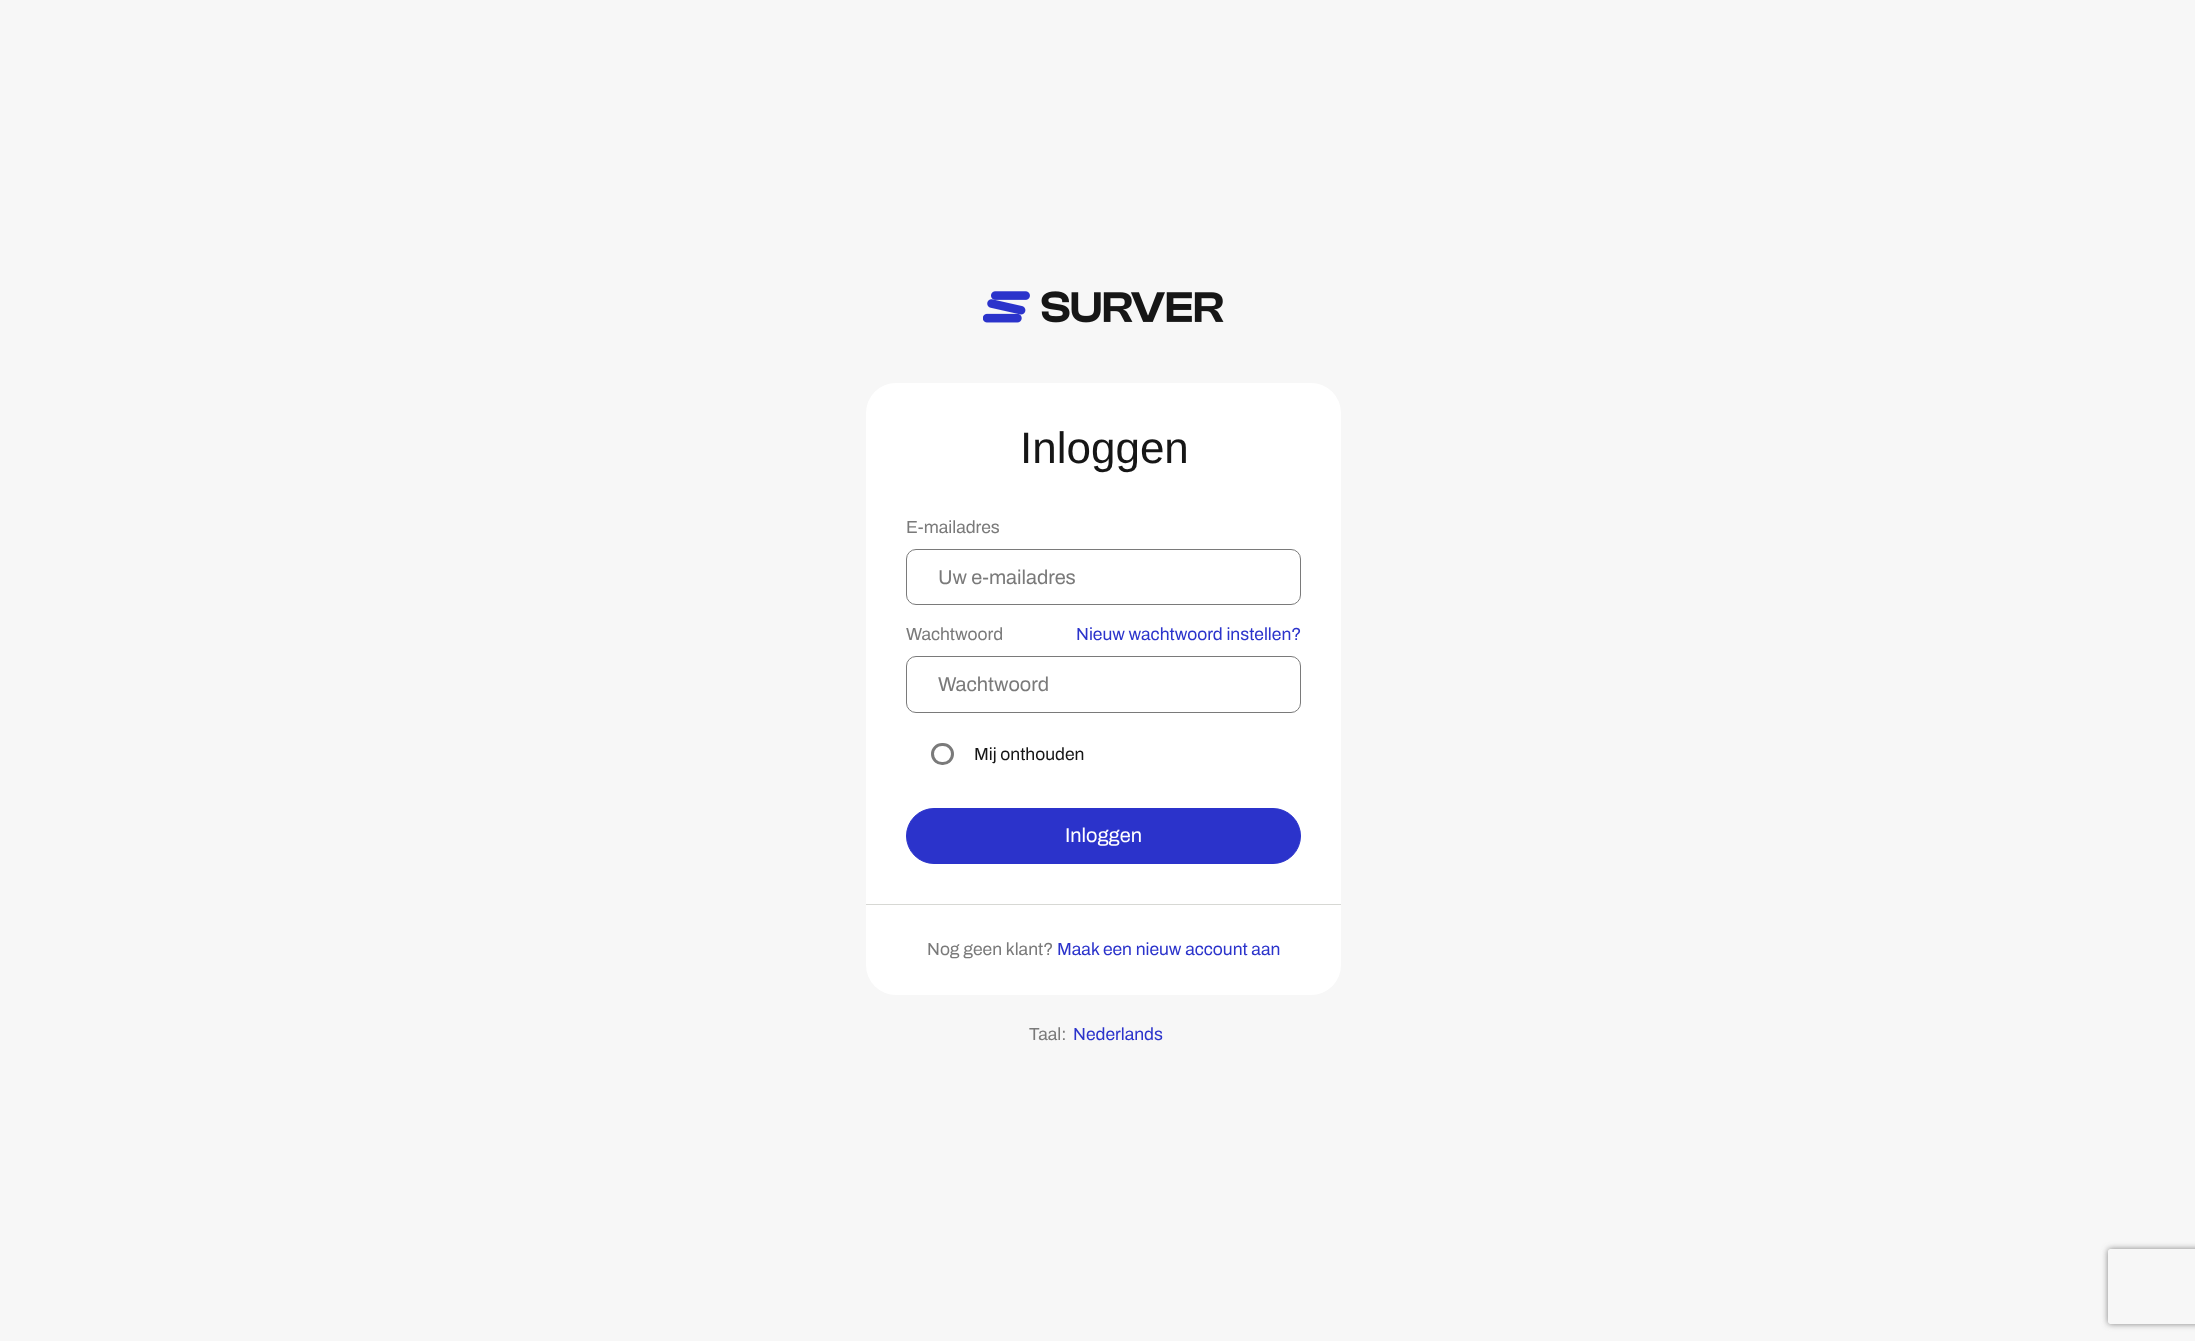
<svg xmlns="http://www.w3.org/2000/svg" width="2195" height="1341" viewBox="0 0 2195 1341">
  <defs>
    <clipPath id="clip1"><path d="M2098 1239H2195V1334H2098ZM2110.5 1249H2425.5C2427 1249 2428 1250 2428 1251.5V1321.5C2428 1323 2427 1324 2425.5 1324H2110.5C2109 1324 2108 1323 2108 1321.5V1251.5C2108 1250 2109 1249 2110.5 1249Z" clip-rule="evenodd"/></clipPath>
    <filter id="blur1" x="-50%" y="-200%" width="200%" height="500%"><feGaussianBlur stdDeviation="3"/></filter>
  </defs>
  <rect width="100%" height="100%" fill="#f7f7f7"/>
  <image x="983" y="291" width="241" height="32" href="img1.png"/>
  <rect x="866" y="383" width="475" height="612" rx="30" fill="#ffffff"/>
  <text x="1020" y="463" font-family="Liberation Sans" font-size="44" fill="#161616">Inloggen</text>
  <text x="906" y="533" font-family="Archivo" font-size="17.5" fill="#7a7a7a">E-mailadres</text>
  <rect x="906.5" y="549.5" width="394" height="55" rx="9.5" fill="none" stroke="#7a7a7a"/>
  <text x="938" y="584" font-family="Archivo" font-size="20" fill="#7a7a7a">Uw e-mailadres</text>
  <text x="906" y="640" font-family="Archivo" font-size="17.5" fill="#7a7a7a">Wachtwoord</text>
  <text x="1076" y="640" font-family="Archivo" font-size="17.5" fill="#2b33cb">Nieuw wachtwoord instellen?</text>
  <rect x="906.5" y="656.5" width="394" height="56" rx="9.5" fill="none" stroke="#7a7a7a"/>
  <text x="938" y="691" font-family="Archivo" font-size="20" fill="#7a7a7a">Wachtwoord</text>
  <rect x="932.5" y="744.5" width="20" height="19" rx="9.5" fill="none" stroke="#7a7a7a" stroke-width="3"/>
  <text x="974" y="760" font-family="Archivo" font-size="17.5" fill="#161616">Mij onthouden</text>
  <rect x="906.5" y="808.5" width="394" height="55" rx="27.5" fill="#2b33cb" stroke="#2b33cb"/>
  <text x="1065" y="842" font-family="Archivo" font-size="20" fill="#ffffff">Inloggen</text>
  <g clip-path="url(#clip1)">
    <rect x="2108" y="1249" width="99" height="75" rx="2.5" fill="#808080" filter="url(#blur1)"/>
  </g>
  <rect x="866" y="904" width="475" height="1" fill="#d7d8d4"/>
  <text x="927" y="955" font-family="Archivo" font-size="17.5" fill="#7a7a7a">Nog geen klant?</text>
  <text x="1057" y="955" font-family="Archivo" font-size="17.5" fill="#2b33cb">Maak een nieuw account aan</text>
  <text x="1029" y="1040" font-family="Archivo" font-size="17.5" fill="#7a7a7a">Taal:</text>
  <text x="1073" y="1040" font-family="Archivo" font-size="17.5" fill="#2b33cb">Nederlands</text>
</svg>
